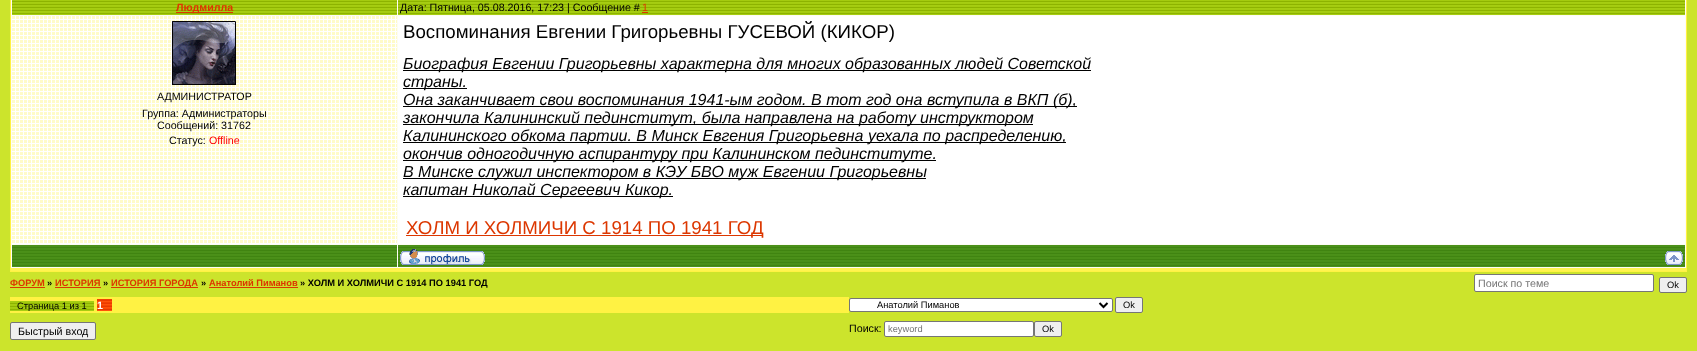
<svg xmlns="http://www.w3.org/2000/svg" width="1697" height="351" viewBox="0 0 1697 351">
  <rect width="100%" height="100%" fill="#cce42c"/>
  <rect x="10" y="0" width="1677" height="272" fill="#fff243"/>
  <rect x="11" y="0" width="1675" height="268" fill="#fdfcf4"/>
  <rect x="11" y="268" width="1675" height="3" fill="#fff350"/>
  <image x="12" y="0" width="385" height="15" href="img1.png"/>
  <rect x="176" y="12" width="57" height="1" fill="#dc3700"/>
  <text x="176" y="11" font-family="Liberation Sans" font-size="10.7" font-weight="bold" fill="#dc3700">Людмилла</text>
  <image x="398" y="0" width="1287" height="15" href="img2.png"/>
  <text x="400" y="11" font-family="Liberation Sans" font-size="10.7" fill="#000000">Дата: Пятница, 05.08.2016, 17:23 | Сообщение #</text>
  <text x="642" y="11" font-family="Liberation Sans" font-size="10.7" fill="#dc3700">1</text>
  <rect x="642" y="12" width="6" height="1" fill="#dc3700"/>
  <image x="12" y="16" width="385" height="228" href="img3.png"/>
  <image x="172" y="21" width="64" height="64" href="img4.png"/>
  <text x="157" y="100" font-family="Liberation Sans" font-size="10.7" fill="#000000">АДМИНИСТРАТОР</text>
  <text x="142" y="117" font-family="Liberation Sans" font-size="10.7" fill="#000000">Группа: Администраторы</text>
  <text x="157" y="129" font-family="Liberation Sans" font-size="10.7" fill="#000000">Сообщений: 31762</text>
  <text x="169" y="144" font-family="Liberation Sans" font-size="10.7" fill="#000000">Статус:</text>
  <text x="209" y="144" font-family="Liberation Sans" font-size="10.7" fill="#ff0000">Offline</text>
  <rect x="398" y="16" width="1287" height="228" fill="#ffffff"/>
  <text x="403" y="38" font-family="Liberation Sans" font-size="18.7" fill="#000000">Воспоминания Евгении Григорьевны ГУСЕВОЙ (КИКОР)</text>
  <rect x="403" y="70" width="688" height="1" fill="#000000"/>
  <text x="403" y="69" font-family="Liberation Sans" font-size="16" font-style="italic" fill="#000000">Биография Евгении Григорьевны характерна для многих образованных людей Советской</text>
  <rect x="403" y="88" width="64" height="1" fill="#000000"/>
  <text x="403" y="87" font-family="Liberation Sans" font-size="16" font-style="italic" fill="#000000">страны.</text>
  <rect x="403" y="106" width="674" height="1" fill="#000000"/>
  <text x="403" y="105" font-family="Liberation Sans" font-size="16" font-style="italic" fill="#000000">Она заканчивает свои воспоминания 1941-ым годом. В тот год она вступила в ВКП (б),</text>
  <rect x="403" y="124" width="630" height="1" fill="#000000"/>
  <text x="403" y="123" font-family="Liberation Sans" font-size="16" font-style="italic" fill="#000000">закончила Калининский пединститут, была направлена на работу инструктором</text>
  <rect x="403" y="142" width="663" height="1" fill="#000000"/>
  <text x="403" y="141" font-family="Liberation Sans" font-size="16" font-style="italic" fill="#000000">Калининского обкома партии. В Минск Евгения Григорьевна уехала по распределению,</text>
  <rect x="403" y="160" width="533" height="1" fill="#000000"/>
  <text x="403" y="159" font-family="Liberation Sans" font-size="16" font-style="italic" fill="#000000">окончив одногодичную аспирантуру при Калининском пединституте.</text>
  <rect x="403" y="178" width="523" height="1" fill="#000000"/>
  <text x="403" y="177" font-family="Liberation Sans" font-size="16" font-style="italic" fill="#000000">В Минске служил инспектором в КЭУ БВО муж Евгении Григорьевны</text>
  <rect x="403" y="196" width="270" height="1" fill="#000000"/>
  <text x="403" y="195" font-family="Liberation Sans" font-size="16" font-style="italic" fill="#000000">капитан Николай Сергеевич Кикор.</text>
  <rect x="406" y="235" width="356" height="1" fill="#dc3700"/>
  <text x="406" y="234" font-family="Liberation Sans" font-size="18.7" fill="#dc3700">ХОЛМ И ХОЛМИЧИ С 1914 ПО 1941 ГОД</text>
  <rect x="12" y="245" width="385" height="22" fill="#4b9019"/>
  <image x="12" y="247" width="385" height="19" href="img5.png"/>
  <rect x="398" y="245" width="1287" height="22" fill="#4b9019"/>
  <image x="398" y="247" width="1287" height="19" href="img6.png"/>
  <image x="400" y="249" width="85" height="16" href="img7.png"/>
  <image x="1665" y="251" width="18" height="14" href="img8.png"/>
  <text x="10" y="286" font-family="Liberation Sans" font-size="9.3" font-weight="bold" fill="#dc3700">ФОРУМ</text>
  <rect x="10" y="287" width="35" height="1" fill="#dc3700"/>
  <text x="47" y="286" font-family="Liberation Sans" font-size="9.3" font-weight="bold" fill="#000000">»</text>
  <text x="55" y="286" font-family="Liberation Sans" font-size="9.3" font-weight="bold" fill="#dc3700">ИСТОРИЯ</text>
  <rect x="55" y="287" width="46" height="1" fill="#dc3700"/>
  <text x="103" y="286" font-family="Liberation Sans" font-size="9.3" font-weight="bold" fill="#000000">»</text>
  <rect x="111" y="287" width="87" height="1" fill="#dc3700"/>
  <text x="111" y="286" font-family="Liberation Sans" font-size="9.3" font-weight="bold" fill="#dc3700">ИСТОРИЯ ГОРОДА</text>
  <text x="201" y="286" font-family="Liberation Sans" font-size="9.3" font-weight="bold" fill="#000000">»</text>
  <text x="209" y="286" font-family="Liberation Sans" font-size="9.3" font-weight="bold" fill="#dc3700">Анатолий Пиманов</text>
  <rect x="209" y="287" width="89" height="1" fill="#dc3700"/>
  <text x="300" y="286" font-family="Liberation Sans" font-size="9.3" font-weight="bold" fill="#000000">» ХОЛМ И ХОЛМИЧИ С 1914 ПО 1941 ГОД</text>
  <rect x="1474.5" y="274.5" width="179" height="17" rx="1.5" fill="#ffffff" stroke="#767676"/>
  <text x="1478" y="287" font-family="Liberation Sans" font-size="10.7" fill="#757575">Поиск по теме</text>
  <rect x="1659.5" y="277.5" width="27" height="15" rx="1.5" fill="#efefef" stroke="#767676"/>
  <text x="1667" y="288" font-family="Liberation Sans" font-size="9.3" fill="#000000">Ok</text>
  <rect x="10" y="297" width="839" height="16" fill="#fff243"/>
  <image x="10" y="301" width="84" height="10" href="img9.png"/>
  <text x="17" y="309" font-family="Liberation Sans" font-size="9.3" fill="#000000">Страница 1 из 1</text>
  <image x="97" y="299" width="15" height="12" href="img10.png"/>
  <text x="97" y="309" font-family="Liberation Sans" font-size="10.7" font-weight="bold" fill="#ffffff">1</text>
  <rect x="849.5" y="298.5" width="263" height="13" rx="1.5" fill="#ffffff" stroke="#767676"/>
  <path d="M1099.5 303L1103.5 307L1107.5 303" fill="none" stroke="#000000" stroke-width="2"/>
  <text x="877" y="308" font-family="Liberation Sans" font-size="9.3" fill="#000000">Анатолий Пиманов</text>
  <rect x="1115.5" y="297.5" width="27" height="15" rx="1.5" fill="#efefef" stroke="#767676"/>
  <text x="1123" y="308" font-family="Liberation Sans" font-size="9.3" fill="#000000">Ok</text>
  <rect x="10.5" y="322.5" width="85" height="17" rx="1.5" fill="#efefef" stroke="#767676"/>
  <text x="18" y="335" font-family="Liberation Sans" font-size="10.7" fill="#000000">Быстрый вход</text>
  <text x="849" y="332" font-family="Liberation Sans" font-size="10.7" fill="#000000">Поиск:</text>
  <rect x="884.5" y="321.5" width="149" height="15" rx="1.5" fill="#ffffff" stroke="#767676"/>
  <text x="888" y="332" font-family="Liberation Sans" font-size="9.3" fill="#757575">keyword</text>
  <rect x="1034.5" y="321.5" width="27" height="15" rx="1.5" fill="#efefef" stroke="#767676"/>
  <text x="1042" y="332" font-family="Liberation Sans" font-size="9.3" fill="#000000">Ok</text>
</svg>
